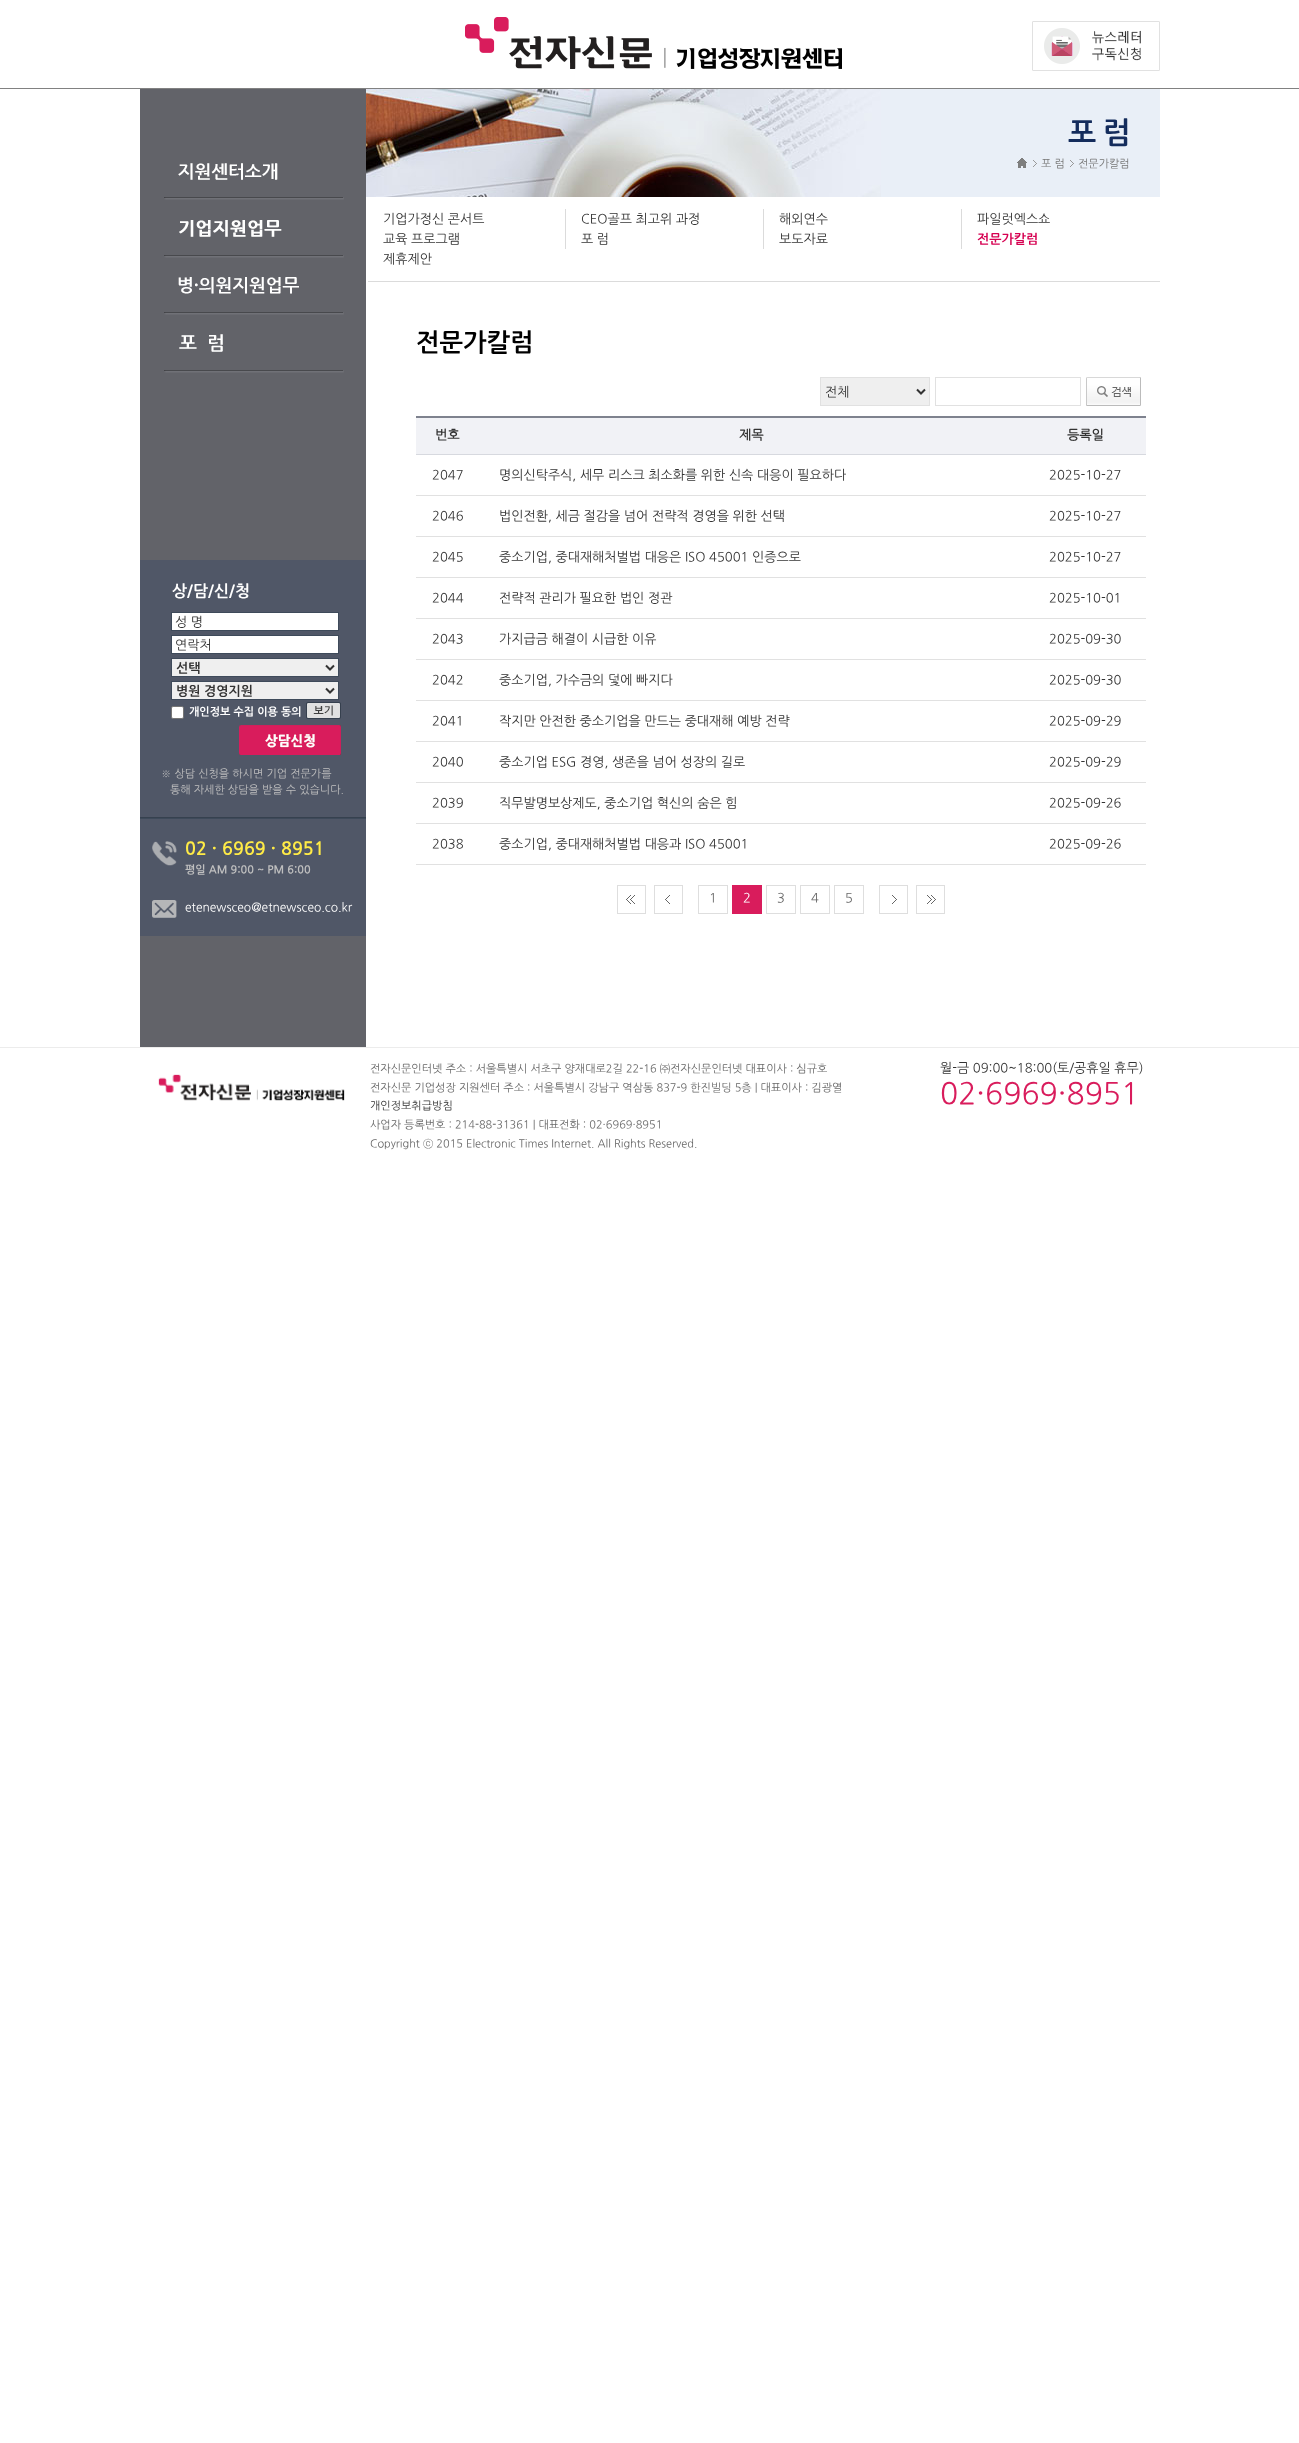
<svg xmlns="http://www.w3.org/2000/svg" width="1299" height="2443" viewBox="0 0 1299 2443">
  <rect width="100%" height="100%" fill="#ffffff"/>
  <rect x="0" y="88" width="1299" height="1" fill="#818181"/>
  <image x="465" y="17" width="377" height="52" href="img1.png"/>
  <image x="1032" y="21" width="128" height="50" href="img2.png"/>
  <rect x="140" y="89" width="226" height="471" fill="#626369"/>
  <image x="164" y="163" width="180" height="37" href="img3.png"/>
  <image x="164" y="220" width="180" height="38" href="img4.png"/>
  <image x="164" y="277" width="180" height="38" href="img5.png"/>
  <image x="164" y="334" width="180" height="39" href="img6.png"/>
  <rect x="881" y="89" width="279" height="108" fill="#e9eff7"/>
  <image x="366" y="89" width="515" height="108" href="img7.png"/>
  <text x="1068" y="142" font-family="NanumGothic" font-size="30" font-weight="bold" letter-spacing="-1" fill="#142c5c">포 럼</text>
  <image x="1017" y="158" width="10" height="10" href="img8.png"/>
  <image x="1033" y="160" width="4" height="7" href="img9.png"/>
  <text x="1041" y="167" font-family="NanumGothic" font-size="11" fill="#777777">포 럼</text>
  <image x="1070" y="160" width="4" height="7" href="img9.png"/>
  <text x="1078" y="167" font-family="NanumGothic" font-size="11" fill="#777777">전문가칼럼</text>
  <rect x="368" y="281" width="792" height="1" fill="#dbdbdb"/>
  <text x="383" y="223" font-family="NanumGothic" font-size="13" fill="#333333">기업가정신 콘서트</text>
  <rect x="565" y="209" width="1" height="40" fill="#dbdbdb"/>
  <text x="581" y="223" font-family="NanumGothic" font-size="13" fill="#333333">CEO골프 최고위 과정</text>
  <rect x="763" y="209" width="1" height="40" fill="#dbdbdb"/>
  <text x="779" y="223" font-family="NanumGothic" font-size="13" fill="#333333">해외연수</text>
  <rect x="961" y="209" width="1" height="40" fill="#dbdbdb"/>
  <text x="977" y="223" font-family="NanumGothic" font-size="13" fill="#333333">파일럿엑스쇼</text>
  <text x="383" y="243" font-family="NanumGothic" font-size="13" fill="#333333">교육 프로그램</text>
  <text x="581" y="243" font-family="NanumGothic" font-size="13" fill="#333333">포 럼</text>
  <text x="779" y="243" font-family="NanumGothic" font-size="13" fill="#333333">보도자료</text>
  <text x="977" y="243" font-family="NanumGothic" font-size="13" font-weight="bold" fill="#d60051">전문가칼럼</text>
  <text x="383" y="263" font-family="NanumGothic" font-size="13" fill="#333333">제휴제안</text>
  <rect x="140" y="936" width="226" height="111" fill="#626369"/>
  <rect x="140" y="560" width="226" height="376" fill="#505767"/>
  <image x="140" y="817" width="226" height="2" href="img10.png"/>
  <text x="172" y="596" font-family="NanumGothic" font-size="16" font-weight="bold" fill="#ffffff">상/담/신/청</text>
  <rect x="171.5" y="612.5" width="167" height="18" fill="#ffffff" stroke="#3e4a5a"/>
  <text x="175" y="626" font-family="NanumGothic" font-size="13" fill="#333333">성 명</text>
  <rect x="171.5" y="635.5" width="167" height="18" fill="#ffffff" stroke="#3e4a5a"/>
  <text x="175" y="649" font-family="NanumGothic" font-size="13" fill="#333333">연락처</text>
  <rect x="171.5" y="658.5" width="167" height="18" fill="#efefef" stroke="#3e4a5a"/>
  <path d="M326 665.5L330 669.5L334 665.5" fill="none" stroke="#333333" stroke-width="2"/>
  <text x="176" y="672" font-family="NanumGothic" font-size="13" font-weight="bold" fill="#333333">선택</text>
  <rect x="171.5" y="681.5" width="167" height="18" fill="#efefef" stroke="#3e4a5a"/>
  <path d="M326 688.5L330 692.5L334 688.5" fill="none" stroke="#333333" stroke-width="2"/>
  <text x="176" y="695" font-family="NanumGothic" font-size="13" font-weight="bold" fill="#333333">병원 경영지원</text>
  <rect x="171.5" y="706.5" width="12" height="12" rx="1.5" fill="#ffffff" stroke="#767676"/>
  <text x="189" y="715" font-family="NanumGothic" font-size="11" font-weight="bold" fill="#ffffff">개인정보 수집 이용 동의</text>
  <image x="306" y="702" width="35" height="17" href="img11.png"/>
  <image x="239" y="725" width="102" height="30" href="img12.png"/>
  <text x="161" y="777" font-family="NanumGothic" font-size="11" fill="#bfbfbf">※ 상담 신청을 하시면 기업 전문가를</text>
  <text x="170" y="793" font-family="NanumGothic" font-size="11" fill="#bfbfbf">통해 자세한 상담을 받을 수 있습니다.</text>
  <image x="152" y="841" width="25" height="25" href="img13.png"/>
  <text x="185" y="854" font-family="NanumGothic" font-size="18" font-weight="bold" fill="#ffeb46">02 · 6969 · 8951</text>
  <text x="185" y="873" font-family="NanumGothic" font-size="11" font-weight="bold" fill="#bfbfbf">평일 AM 9:00 ~ PM 6:00</text>
  <image x="152" y="900" width="25" height="18" href="img14.png"/>
  <text x="185" y="911" font-family="NanumGothic" font-size="12" fill="#ffffff">etenewsceo@etnewsceo.co.kr</text>
  <text x="416" y="350" font-family="NanumGothic" font-size="25" font-weight="bold" fill="#000000">전문가칼럼</text>
  <rect x="820.5" y="377.5" width="109" height="28" fill="#efefef" stroke="#e1e1e1"/>
  <path d="M917 389.5L921 393.5L925 389.5" fill="none" stroke="#333333" stroke-width="2"/>
  <text x="825" y="396" font-family="NanumGothic" font-size="13" fill="#333333">전체</text>
  <rect x="935.5" y="377.5" width="145" height="28" fill="none" stroke="#e1e1e1"/>
  <image x="1086" y="377" width="55" height="29" href="img15.png"/>
  <rect x="416" y="416" width="730" height="2" fill="#7e828e"/>
  <rect x="416" y="418" width="730" height="36" fill="#f1f2f6"/>
  <text x="435" y="439" font-family="'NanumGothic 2'" font-size="13" font-weight="bold" fill="#333333">번호</text>
  <text x="739" y="439" font-family="'NanumGothic 2'" font-size="13" font-weight="bold" fill="#333333">제목</text>
  <rect x="416" y="454" width="730" height="1" fill="#d7d9df"/>
  <text x="1067" y="439" font-family="'NanumGothic 2'" font-size="13" font-weight="bold" fill="#333333">등록일</text>
  <text x="432" y="479" font-family="NanumGothic" font-size="13" fill="#333333">2047</text>
  <text x="499" y="479" font-family="NanumGothic" font-size="13" fill="#333333">명의신탁주식, 세무 리스크 최소화를 위한 신속 대응이 필요하다</text>
  <rect x="416" y="495" width="730" height="1" fill="#e1e1e1"/>
  <text x="1049" y="479" font-family="NanumGothic" font-size="13" fill="#333333">2025-10-27</text>
  <text x="432" y="520" font-family="NanumGothic" font-size="13" fill="#333333">2046</text>
  <text x="499" y="520" font-family="NanumGothic" font-size="13" fill="#333333">법인전환, 세금 절감을 넘어 전략적 경영을 위한 선택</text>
  <rect x="416" y="536" width="730" height="1" fill="#e1e1e1"/>
  <text x="1049" y="520" font-family="NanumGothic" font-size="13" fill="#333333">2025-10-27</text>
  <text x="432" y="561" font-family="NanumGothic" font-size="13" fill="#333333">2045</text>
  <text x="499" y="561" font-family="NanumGothic" font-size="13" fill="#333333">중소기업, 중대재해처벌법 대응은 ISO 45001 인증으로</text>
  <rect x="416" y="577" width="730" height="1" fill="#e1e1e1"/>
  <text x="1049" y="561" font-family="NanumGothic" font-size="13" fill="#333333">2025-10-27</text>
  <text x="432" y="602" font-family="NanumGothic" font-size="13" fill="#333333">2044</text>
  <text x="499" y="602" font-family="NanumGothic" font-size="13" fill="#333333">전략적 관리가 필요한 법인 정관</text>
  <rect x="416" y="618" width="730" height="1" fill="#e1e1e1"/>
  <text x="1049" y="602" font-family="NanumGothic" font-size="13" fill="#333333">2025-10-01</text>
  <text x="432" y="643" font-family="NanumGothic" font-size="13" fill="#333333">2043</text>
  <text x="499" y="643" font-family="NanumGothic" font-size="13" fill="#333333">가지급금 해결이 시급한 이유</text>
  <rect x="416" y="659" width="730" height="1" fill="#e1e1e1"/>
  <text x="1049" y="643" font-family="NanumGothic" font-size="13" fill="#333333">2025-09-30</text>
  <text x="432" y="684" font-family="NanumGothic" font-size="13" fill="#333333">2042</text>
  <text x="499" y="684" font-family="NanumGothic" font-size="13" fill="#333333">중소기업, 가수금의 덫에 빠지다</text>
  <rect x="416" y="700" width="730" height="1" fill="#e1e1e1"/>
  <text x="1049" y="684" font-family="NanumGothic" font-size="13" fill="#333333">2025-09-30</text>
  <text x="432" y="725" font-family="NanumGothic" font-size="13" fill="#333333">2041</text>
  <text x="499" y="725" font-family="NanumGothic" font-size="13" fill="#333333">작지만 안전한 중소기업을 만드는 중대재해 예방 전략</text>
  <rect x="416" y="741" width="730" height="1" fill="#e1e1e1"/>
  <text x="1049" y="725" font-family="NanumGothic" font-size="13" fill="#333333">2025-09-29</text>
  <text x="432" y="766" font-family="NanumGothic" font-size="13" fill="#333333">2040</text>
  <text x="499" y="766" font-family="NanumGothic" font-size="13" fill="#333333">중소기업 ESG 경영, 생존을 넘어 성장의 길로</text>
  <rect x="416" y="782" width="730" height="1" fill="#e1e1e1"/>
  <text x="1049" y="766" font-family="NanumGothic" font-size="13" fill="#333333">2025-09-29</text>
  <text x="432" y="807" font-family="NanumGothic" font-size="13" fill="#333333">2039</text>
  <text x="499" y="807" font-family="NanumGothic" font-size="13" fill="#333333">직무발명보상제도, 중소기업 혁신의 숨은 힘</text>
  <rect x="416" y="823" width="730" height="1" fill="#e1e1e1"/>
  <text x="1049" y="807" font-family="NanumGothic" font-size="13" fill="#333333">2025-09-26</text>
  <text x="432" y="848" font-family="NanumGothic" font-size="13" fill="#333333">2038</text>
  <text x="499" y="848" font-family="NanumGothic" font-size="13" fill="#333333">중소기업, 중대재해처벌법 대응과 ISO 45001</text>
  <rect x="416" y="864" width="730" height="1" fill="#e1e1e1"/>
  <text x="1049" y="848" font-family="NanumGothic" font-size="13" fill="#333333">2025-09-26</text>
  <image x="617" y="885" width="29" height="29" href="img16.png"/>
  <image x="654" y="885" width="29" height="29" href="img17.png"/>
  <rect x="698.5" y="885.5" width="29" height="28" fill="none" stroke="#dedede"/>
  <text x="709" y="902" font-family="NanumGothic" font-size="13" fill="#686868">1</text>
  <rect x="732" y="885" width="30" height="29" fill="#d91c5c"/>
  <text x="743" y="902" font-family="NanumGothic" font-size="13" fill="#ffffff">2</text>
  <rect x="766.5" y="885.5" width="29" height="28" fill="none" stroke="#dedede"/>
  <text x="777" y="902" font-family="NanumGothic" font-size="13" fill="#686868">3</text>
  <rect x="800.5" y="885.5" width="29" height="28" fill="none" stroke="#dedede"/>
  <text x="811" y="902" font-family="NanumGothic" font-size="13" fill="#686868">4</text>
  <rect x="834.5" y="885.5" width="29" height="28" fill="none" stroke="#dedede"/>
  <text x="845" y="902" font-family="NanumGothic" font-size="13" fill="#686868">5</text>
  <image x="879" y="885" width="29" height="29" href="img18.png"/>
  <image x="916" y="885" width="29" height="29" href="img19.png"/>
  <rect x="0" y="1047" width="1299" height="1" fill="#ececec"/>
  <image x="158" y="1074" width="187" height="27" href="img20.png"/>
  <text x="370" y="1072" font-family="NanumGothic" font-size="11" fill="#686868">전자신문인터넷 주소 : 서울특별시 서초구 양재대로2길 22-16 ㈜전자신문인터넷 대표이사 : 심규호</text>
  <text x="370" y="1091" font-family="NanumGothic" font-size="11" fill="#686868">전자신문 기업성장 지원센터 주소 : 서울특별시 강남구 역삼동 837-9 한진빌딩 5층 | 대표이사 : 김광열</text>
  <text x="370" y="1109" font-family="NanumGothic" font-size="11" fill="#333333">개인정보취급방침</text>
  <text x="370" y="1128" font-family="NanumGothic" font-size="11" fill="#686868">사업자 등록번호 : 214-88-31361 | 대표전화 : 02·6969·8951</text>
  <text x="370" y="1147" font-family="NanumGothic" font-size="11" fill="#686868">Copyright ⓒ 2015 Electronic Times Internet. All Rights Reserved.</text>
  <text x="940" y="1072" font-family="NanumGothic" font-size="13" fill="#333333">월-금 09:00~18:00(토/공휴일 휴무)</text>
  <text x="940" y="1103" font-family="NanumGothic" font-size="30" fill="#d91c5c">02·6969·8951</text>
</svg>
